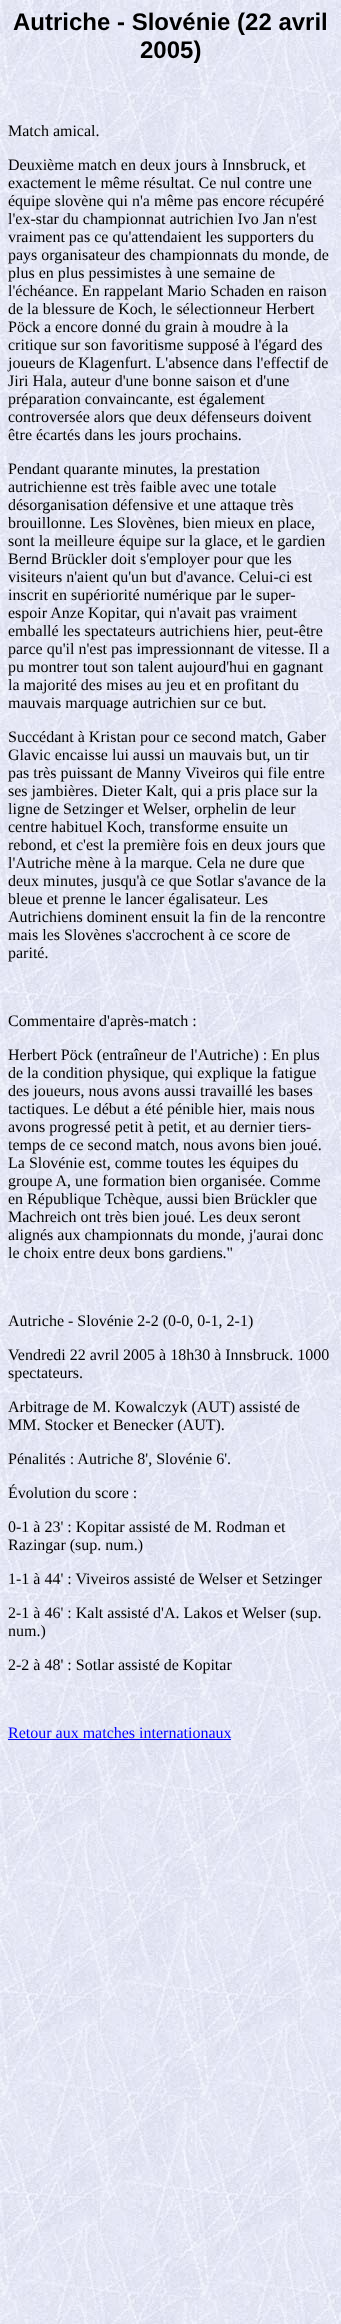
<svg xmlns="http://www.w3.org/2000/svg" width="341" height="2324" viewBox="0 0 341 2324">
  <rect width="100%" height="100%" fill="#ffffff"/>
  <image x="0" y="0" width="341" height="2324" href="img1.png"/>
  <text x="13" y="30" font-family="Liberation Sans" font-size="24" font-weight="bold" fill="#000000">Autriche - Slovénie (22 avril</text>
  <text x="140" y="58" font-family="Liberation Sans" font-size="24" font-weight="bold" fill="#000000">2005)</text>
  <text x="8" y="136" font-family="Liberation Serif" font-size="16" fill="#000000">Match amical.</text>
  <text x="8" y="170" font-family="Liberation Serif" font-size="16" fill="#000000">Deuxième match en deux jours à Innsbruck, et</text>
  <text x="8" y="188" font-family="Liberation Serif" font-size="16" fill="#000000">exactement le même résultat. Ce nul contre une</text>
  <text x="8" y="206" font-family="Liberation Serif" font-size="16" fill="#000000">équipe slovène qui n'a même pas encore récupéré</text>
  <text x="8" y="224" font-family="Liberation Serif" font-size="16" fill="#000000">l'ex-star du championnat autrichien Ivo Jan n'est</text>
  <text x="8" y="242" font-family="Liberation Serif" font-size="16" fill="#000000">vraiment pas ce qu'attendaient les supporters du</text>
  <text x="8" y="260" font-family="Liberation Serif" font-size="16" fill="#000000">pays organisateur des championnats du monde, de</text>
  <text x="8" y="278" font-family="Liberation Serif" font-size="16" fill="#000000">plus en plus pessimistes à une semaine de</text>
  <text x="8" y="296" font-family="Liberation Serif" font-size="16" fill="#000000">l'échéance. En rappelant Mario Schaden en raison</text>
  <text x="8" y="314" font-family="Liberation Serif" font-size="16" fill="#000000">de la blessure de Koch, le sélectionneur Herbert</text>
  <text x="8" y="332" font-family="Liberation Serif" font-size="16" fill="#000000">Pöck a encore donné du grain à moudre à la</text>
  <text x="8" y="350" font-family="Liberation Serif" font-size="16" fill="#000000">critique sur son favoritisme supposé à l'égard des</text>
  <text x="8" y="368" font-family="Liberation Serif" font-size="16" fill="#000000">joueurs de Klagenfurt. L'absence dans l'effectif de</text>
  <text x="8" y="386" font-family="Liberation Serif" font-size="16" fill="#000000">Jiri Hala, auteur d'une bonne saison et d'une</text>
  <text x="8" y="404" font-family="Liberation Serif" font-size="16" fill="#000000">préparation convaincante, est également</text>
  <text x="8" y="422" font-family="Liberation Serif" font-size="16" fill="#000000">controversée alors que deux défenseurs doivent</text>
  <text x="8" y="440" font-family="Liberation Serif" font-size="16" fill="#000000">être écartés dans les jours prochains.</text>
  <text x="8" y="474" font-family="Liberation Serif" font-size="16" fill="#000000">Pendant quarante minutes, la prestation</text>
  <text x="8" y="492" font-family="Liberation Serif" font-size="16" fill="#000000">autrichienne est très faible avec une totale</text>
  <text x="8" y="510" font-family="Liberation Serif" font-size="16" fill="#000000">désorganisation défensive et une attaque très</text>
  <text x="8" y="528" font-family="Liberation Serif" font-size="16" fill="#000000">brouillonne. Les Slovènes, bien mieux en place,</text>
  <text x="8" y="546" font-family="Liberation Serif" font-size="16" fill="#000000">sont la meilleure équipe sur la glace, et le gardien</text>
  <text x="8" y="564" font-family="Liberation Serif" font-size="16" fill="#000000">Bernd Brückler doit s'employer pour que les</text>
  <text x="8" y="582" font-family="Liberation Serif" font-size="16" fill="#000000">visiteurs n'aient qu'un but d'avance. Celui-ci est</text>
  <text x="8" y="600" font-family="Liberation Serif" font-size="16" fill="#000000">inscrit en supériorité numérique par le super-</text>
  <text x="8" y="618" font-family="Liberation Serif" font-size="16" fill="#000000">espoir Anze Kopitar, qui n'avait pas vraiment</text>
  <text x="8" y="636" font-family="Liberation Serif" font-size="16" fill="#000000">emballé les spectateurs autrichiens hier, peut-être</text>
  <text x="8" y="654" font-family="Liberation Serif" font-size="16" fill="#000000">parce qu'il n'est pas impressionnant de vitesse. Il a</text>
  <text x="8" y="672" font-family="Liberation Serif" font-size="16" fill="#000000">pu montrer tout son talent aujourd'hui en gagnant</text>
  <text x="8" y="690" font-family="Liberation Serif" font-size="16" fill="#000000">la majorité des mises au jeu et en profitant du</text>
  <text x="8" y="708" font-family="Liberation Serif" font-size="16" fill="#000000">mauvais marquage autrichien sur ce but.</text>
  <text x="8" y="742" font-family="Liberation Serif" font-size="16" fill="#000000">Succédant à Kristan pour ce second match, Gaber</text>
  <text x="8" y="760" font-family="Liberation Serif" font-size="16" fill="#000000">Glavic encaisse lui aussi un mauvais but, un tir</text>
  <text x="8" y="778" font-family="Liberation Serif" font-size="16" fill="#000000">pas très puissant de Manny Viveiros qui file entre</text>
  <text x="8" y="796" font-family="Liberation Serif" font-size="16" fill="#000000">ses jambières. Dieter Kalt, qui a pris place sur la</text>
  <text x="8" y="814" font-family="Liberation Serif" font-size="16" fill="#000000">ligne de Setzinger et Welser, orphelin de leur</text>
  <text x="8" y="832" font-family="Liberation Serif" font-size="16" fill="#000000">centre habituel Koch, transforme ensuite un</text>
  <text x="8" y="850" font-family="Liberation Serif" font-size="16" fill="#000000">rebond, et c'est la première fois en deux jours que</text>
  <text x="8" y="868" font-family="Liberation Serif" font-size="16" fill="#000000">l'Autriche mène à la marque. Cela ne dure que</text>
  <text x="8" y="886" font-family="Liberation Serif" font-size="16" fill="#000000">deux minutes, jusqu'à ce que Sotlar s'avance de la</text>
  <text x="8" y="904" font-family="Liberation Serif" font-size="16" fill="#000000">bleue et prenne le lancer égalisateur. Les</text>
  <text x="8" y="922" font-family="Liberation Serif" font-size="16" fill="#000000">Autrichiens dominent ensuit la fin de la rencontre</text>
  <text x="8" y="940" font-family="Liberation Serif" font-size="16" fill="#000000">mais les Slovènes s'accrochent à ce score de</text>
  <text x="8" y="958" font-family="Liberation Serif" font-size="16" fill="#000000">parité.</text>
  <text x="8" y="1026" font-family="Liberation Serif" font-size="16" fill="#000000">Commentaire d'après-match :</text>
  <text x="8" y="1060" font-family="Liberation Serif" font-size="16" fill="#000000">Herbert Pöck (entraîneur de l'Autriche) : En plus</text>
  <text x="8" y="1078" font-family="Liberation Serif" font-size="16" fill="#000000">de la condition physique, qui explique la fatigue</text>
  <text x="8" y="1096" font-family="Liberation Serif" font-size="16" fill="#000000">des joueurs, nous avons aussi travaillé les bases</text>
  <text x="8" y="1114" font-family="Liberation Serif" font-size="16" fill="#000000">tactiques. Le début a été pénible hier, mais nous</text>
  <text x="8" y="1132" font-family="Liberation Serif" font-size="16" fill="#000000">avons progressé petit à petit, et au dernier tiers-</text>
  <text x="8" y="1150" font-family="Liberation Serif" font-size="16" fill="#000000">temps de ce second match, nous avons bien joué.</text>
  <text x="8" y="1168" font-family="Liberation Serif" font-size="16" fill="#000000">La Slovénie est, comme toutes les équipes du</text>
  <text x="8" y="1186" font-family="Liberation Serif" font-size="16" fill="#000000">groupe A, une formation bien organisée. Comme</text>
  <text x="8" y="1204" font-family="Liberation Serif" font-size="16" fill="#000000">en République Tchèque, aussi bien Brückler que</text>
  <text x="8" y="1222" font-family="Liberation Serif" font-size="16" fill="#000000">Machreich ont très bien joué. Les deux seront</text>
  <text x="8" y="1240" font-family="Liberation Serif" font-size="16" fill="#000000">alignés aux championnats du monde, j'aurai donc</text>
  <text x="8" y="1258" font-family="Liberation Serif" font-size="16" fill="#000000">le choix entre deux bons gardiens."</text>
  <text x="8" y="1326" font-family="Liberation Serif" font-size="16" fill="#000000">Autriche - Slovénie 2-2 (0-0, 0-1, 2-1)</text>
  <text x="8" y="1360" font-family="Liberation Serif" font-size="16" fill="#000000">Vendredi 22 avril 2005 à 18h30 à Innsbruck. 1000</text>
  <text x="8" y="1378" font-family="Liberation Serif" font-size="16" fill="#000000">spectateurs.</text>
  <text x="8" y="1412" font-family="Liberation Serif" font-size="16" fill="#000000">Arbitrage de M. Kowalczyk (AUT) assisté de</text>
  <text x="8" y="1430" font-family="Liberation Serif" font-size="16" fill="#000000">MM. Stocker et Benecker (AUT).</text>
  <text x="8" y="1464" font-family="Liberation Serif" font-size="16" fill="#000000">Pénalités : Autriche 8', Slovénie 6'.</text>
  <text x="8" y="1498" font-family="Liberation Serif" font-size="16" fill="#000000">Évolution du score :</text>
  <text x="8" y="1532" font-family="Liberation Serif" font-size="16" fill="#000000">0-1 à 23' : Kopitar assisté de M. Rodman et</text>
  <text x="8" y="1550" font-family="Liberation Serif" font-size="16" fill="#000000">Razingar (sup. num.)</text>
  <text x="8" y="1584" font-family="Liberation Serif" font-size="16" fill="#000000">1-1 à 44' : Viveiros assisté de Welser et Setzinger</text>
  <text x="8" y="1618" font-family="Liberation Serif" font-size="16" fill="#000000">2-1 à 46' : Kalt assisté d'A. Lakos et Welser (sup.</text>
  <text x="8" y="1636" font-family="Liberation Serif" font-size="16" fill="#000000">num.)</text>
  <text x="8" y="1670" font-family="Liberation Serif" font-size="16" fill="#000000">2-2 à 48' : Sotlar assisté de Kopitar</text>
  <text x="8" y="1738" font-family="Liberation Serif" font-size="16" fill="#0000ff">Retour aux matches internationaux</text>
  <rect x="8" y="1739" width="223" height="1" fill="#0000ff"/>
</svg>
